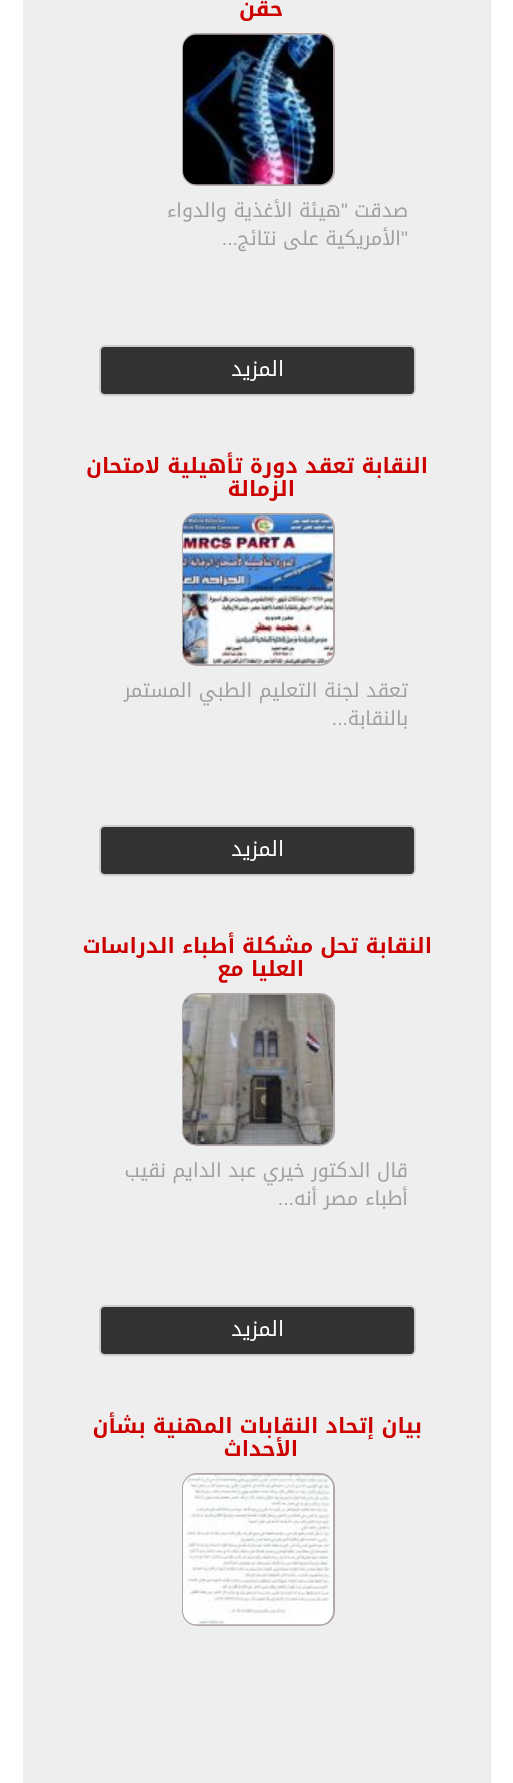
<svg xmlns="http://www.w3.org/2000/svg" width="513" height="1783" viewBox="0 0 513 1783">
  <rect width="100%" height="100%" fill="#ffffff"/>
  <rect x="23" y="0" width="467" height="1783" fill="#eeeeee"/>
  <path d="M24 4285C25 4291 31 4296 38 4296H476C484 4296 491 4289 491 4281V-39C491-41 491-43 490-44V-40V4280C490 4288 484 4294 476 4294H38C31 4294 26 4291 24 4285Z" fill="#e7e7e7"/>
  <text x="283" y="16" font-family="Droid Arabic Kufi" font-size="21" font-weight="bold" direction="rtl" fill="#cd0000">حقن</text>
  <rect x="183" y="34" width="151" height="151" rx="14" fill="none" stroke="#b1a7a7" stroke-width="2"/>
  <image x="183" y="34" width="150" height="151" href="img1.png"/>
  <text x="408" y="217" font-family="Droid Arabic Kufi" font-size="19.5" direction="rtl" fill="#a0a0a0">صدقت</text>
  <text x="348" y="217" font-family="Liberation Sans" font-size="19.5" direction="rtl" fill="#a0a0a0">"</text>
  <text x="341" y="217" font-family="Droid Arabic Kufi" font-size="19.5" direction="rtl" fill="#a0a0a0">هيئة الأغذية والدواء</text>
  <text x="408" y="245" font-family="Liberation Sans" font-size="19.5" direction="rtl" fill="#a0a0a0">"</text>
  <text x="401" y="245" font-family="Droid Arabic Kufi" font-size="19.5" direction="rtl" fill="#a0a0a0">الأمريكية على نتائج</text>
  <text x="238" y="245" font-family="Liberation Sans" font-size="19.5" direction="rtl" fill="#a0a0a0">...</text>
  <rect x="100" y="346" width="315" height="49" rx="5" fill="#333333" stroke="#cccccc" stroke-width="2"/>
  <text x="284" y="376" font-family="Droid Arabic Kufi" font-size="21" direction="rtl" fill="#ffffff">المزيد</text>
  <text x="428" y="473" font-family="Droid Arabic Kufi" font-size="21" font-weight="bold" direction="rtl" fill="#cd0000">النقابة تعقد دورة تأهيلية لامتحان</text>
  <text x="295" y="496" font-family="Droid Arabic Kufi" font-size="21" font-weight="bold" direction="rtl" fill="#cd0000">الزمالة</text>
  <rect x="183" y="514" width="151" height="151" rx="14" fill="none" stroke="#b1a7a7" stroke-width="2"/>
  <image x="183" y="514" width="150" height="151" href="img2.png"/>
  <text x="408" y="697" font-family="Droid Arabic Kufi" font-size="19.5" direction="rtl" fill="#a0a0a0">تعقد لجنة التعليم الطبي المستمر</text>
  <text x="408" y="725" font-family="Droid Arabic Kufi" font-size="19.5" direction="rtl" fill="#a0a0a0">بالنقابة</text>
  <text x="348" y="725" font-family="Liberation Sans" font-size="19.5" direction="rtl" fill="#a0a0a0">...</text>
  <rect x="100" y="826" width="315" height="49" rx="5" fill="#333333" stroke="#cccccc" stroke-width="2"/>
  <text x="284" y="856" font-family="Droid Arabic Kufi" font-size="21" direction="rtl" fill="#ffffff">المزيد</text>
  <text x="432" y="953" font-family="Droid Arabic Kufi" font-size="21" font-weight="bold" direction="rtl" fill="#cd0000">النقابة تحل مشكلة أطباء الدراسات</text>
  <text x="304" y="976" font-family="Droid Arabic Kufi" font-size="21" font-weight="bold" direction="rtl" fill="#cd0000">العليا مع</text>
  <rect x="183" y="994" width="151" height="151" rx="14" fill="none" stroke="#b1a7a7" stroke-width="2"/>
  <image x="183" y="994" width="150" height="151" href="img3.png"/>
  <text x="408" y="1177" font-family="Droid Arabic Kufi" font-size="19.5" direction="rtl" fill="#a0a0a0">قال الدكتور خيري عبد الدايم نقيب</text>
  <text x="408" y="1205" font-family="Droid Arabic Kufi" font-size="19.5" direction="rtl" fill="#a0a0a0">أطباء مصر أنه</text>
  <text x="294" y="1205" font-family="Liberation Sans" font-size="19.5" direction="rtl" fill="#a0a0a0">...</text>
  <rect x="100" y="1306" width="315" height="49" rx="5" fill="#333333" stroke="#cccccc" stroke-width="2"/>
  <text x="284" y="1336" font-family="Droid Arabic Kufi" font-size="21" direction="rtl" fill="#ffffff">المزيد</text>
  <text x="422" y="1433" font-family="Droid Arabic Kufi" font-size="21" font-weight="bold" direction="rtl" fill="#cd0000">بيان إتحاد النقابات المهنية بشأن</text>
  <text x="298" y="1456" font-family="Droid Arabic Kufi" font-size="21" font-weight="bold" direction="rtl" fill="#cd0000">الأحداث</text>
  <rect x="183" y="1474" width="151" height="151" rx="14" fill="none" stroke="#b1a7a7" stroke-width="2"/>
  <image x="183" y="1474" width="150" height="151" href="img4.png"/>
</svg>
